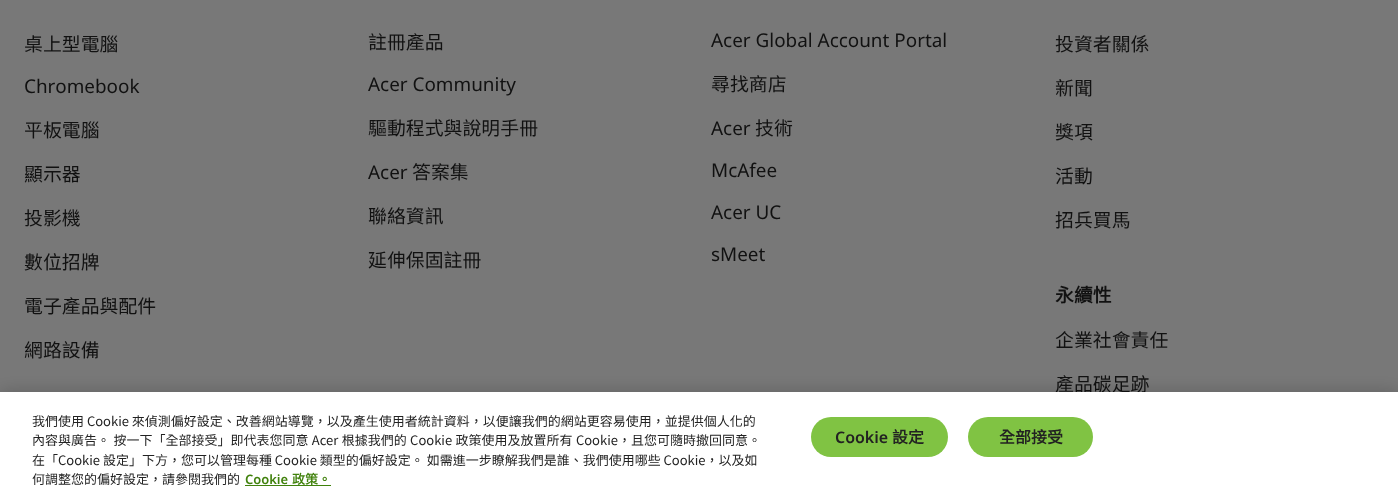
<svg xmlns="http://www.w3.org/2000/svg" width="1398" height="500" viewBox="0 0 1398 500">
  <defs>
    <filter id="blur1" x="-50%" y="-200%" width="200%" height="500%"><feGaussianBlur stdDeviation="9"/></filter>
  </defs>
  <rect width="100%" height="100%" fill="#787878"/>
  <text x="24" y="51" font-family="Noto Sans TC" font-size="18.9" fill="#111111">桌上型電腦</text>
  <text x="24" y="93" font-family="Noto Sans" font-size="18.9" fill="#111111">Chromebook</text>
  <text x="24" y="137" font-family="Noto Sans TC" font-size="18.9" fill="#111111">平板電腦</text>
  <text x="24" y="181" font-family="Noto Sans TC" font-size="18.9" fill="#111111">顯示器</text>
  <text x="24" y="225" font-family="Noto Sans TC" font-size="18.9" fill="#111111">投影機</text>
  <text x="24" y="269" font-family="Noto Sans TC" font-size="18.9" fill="#111111">數位招牌</text>
  <text x="24" y="313" font-family="Noto Sans TC" font-size="18.9" fill="#111111">電子產品與配件</text>
  <text x="24" y="357" font-family="Noto Sans TC" font-size="18.9" fill="#111111">網路設備</text>
  <text x="368" y="49" font-family="Noto Sans TC" font-size="18.9" fill="#111111">註冊產品</text>
  <text x="368" y="91" font-family="Noto Sans" font-size="18.9" fill="#111111">Acer Community</text>
  <text x="368" y="135" font-family="Noto Sans TC" font-size="18.9" fill="#111111">驅動程式與說明手冊</text>
  <text x="368" y="179" font-family="Noto Sans" font-size="18.9" fill="#111111">Acer</text>
  <text x="412" y="179" font-family="Noto Sans TC" font-size="18.9" fill="#111111">答案集</text>
  <text x="368" y="223" font-family="Noto Sans TC" font-size="18.9" fill="#111111">聯絡資訊</text>
  <text x="368" y="267" font-family="Noto Sans TC" font-size="18.9" fill="#111111">延伸保固註冊</text>
  <text x="711" y="47" font-family="Noto Sans" font-size="18.9" fill="#111111">Acer Global Account Portal</text>
  <text x="711" y="91" font-family="Noto Sans TC" font-size="18.9" fill="#111111">尋找商店</text>
  <text x="711" y="135" font-family="Noto Sans" font-size="18.9" fill="#111111">Acer</text>
  <text x="755" y="135" font-family="Noto Sans TC" font-size="18.9" fill="#111111">技術</text>
  <text x="711" y="177" font-family="Noto Sans" font-size="18.9" fill="#111111">McAfee</text>
  <text x="711" y="219" font-family="Noto Sans" font-size="18.9" fill="#111111">Acer UC</text>
  <text x="711" y="261" font-family="Noto Sans" font-size="18.9" fill="#111111">sMeet</text>
  <text x="1055" y="51" font-family="Noto Sans TC" font-size="18.9" fill="#111111">投資者關係</text>
  <text x="1055" y="95" font-family="Noto Sans TC" font-size="18.9" fill="#111111">新聞</text>
  <text x="1055" y="139" font-family="Noto Sans TC" font-size="18.9" fill="#111111">獎項</text>
  <text x="1055" y="183" font-family="Noto Sans TC" font-size="18.9" fill="#111111">活動</text>
  <text x="1055" y="227" font-family="Noto Sans TC" font-size="18.9" fill="#111111">招兵買馬</text>
  <text x="1055" y="302" font-family="Noto Sans TC" font-size="18.9" font-weight="bold" fill="#111111">永續性</text>
  <text x="1055" y="347" font-family="Noto Sans TC" font-size="18.9" fill="#111111">企業社會責任</text>
  <text x="1055" y="391" font-family="Noto Sans TC" font-size="18.9" fill="#111111">產品碳足跡</text>
  <rect x="0" y="392" width="1398" height="108" fill="#000000" fill-opacity="0.2" filter="url(#blur1)"/>
  <rect x="0" y="392" width="1398" height="108" fill="#ffffff"/>
  <text x="32" y="426" font-family="Noto Sans TC" font-size="13" fill="#222222">我們使用 Cookie 來偵測偏好設定、改善網站導覽，以及產生使用者統計資料，以便讓我們的網站更容易使用，並提供個人化的</text>
  <text x="32" y="445" word-spacing="0.5" font-family="Noto Sans TC" font-size="13" fill="#222222">內容與廣告。 按一下「全部接受」即代表您同意 Acer 根據我們的 Cookie 政策使用及放置所有 Cookie，且您可隨時撤回同意。</text>
  <text x="32" y="465" font-family="Noto Sans TC" font-size="13" fill="#222222">在「Cookie 設定」下方，您可以管理每種 Cookie 類型的偏好設定。 如需進一步瞭解我們是誰、我們使用哪些 Cookie，以及如</text>
  <text x="32" y="484" font-family="Noto Sans TC" font-size="13" fill="#222222">何調整您的偏好設定，請參閱我們的</text>
  <text x="245" y="484" font-family="Noto Sans" font-size="13" font-weight="600" fill="#40810c">Cookie</text>
  <rect x="245" y="485" width="86" height="1" fill="#40810c"/>
  <text x="292" y="484" font-family="Noto Sans TC" font-size="13" font-weight="bold" fill="#40810c">政策。</text>
  <rect x="811" y="417" width="137" height="40" rx="20" fill="#80c343"/>
  <text x="835" y="443" font-family="Noto Sans" font-size="16" font-weight="600" fill="#222222">Cookie</text>
  <text x="892" y="443" font-family="Noto Sans TC" font-size="16" font-weight="bold" fill="#222222">設定</text>
  <rect x="968" y="417" width="125" height="40" rx="20" fill="#80c343"/>
  <text x="999" y="443" font-family="Noto Sans TC" font-size="16" font-weight="bold" fill="#222222">全部接受</text>
</svg>
